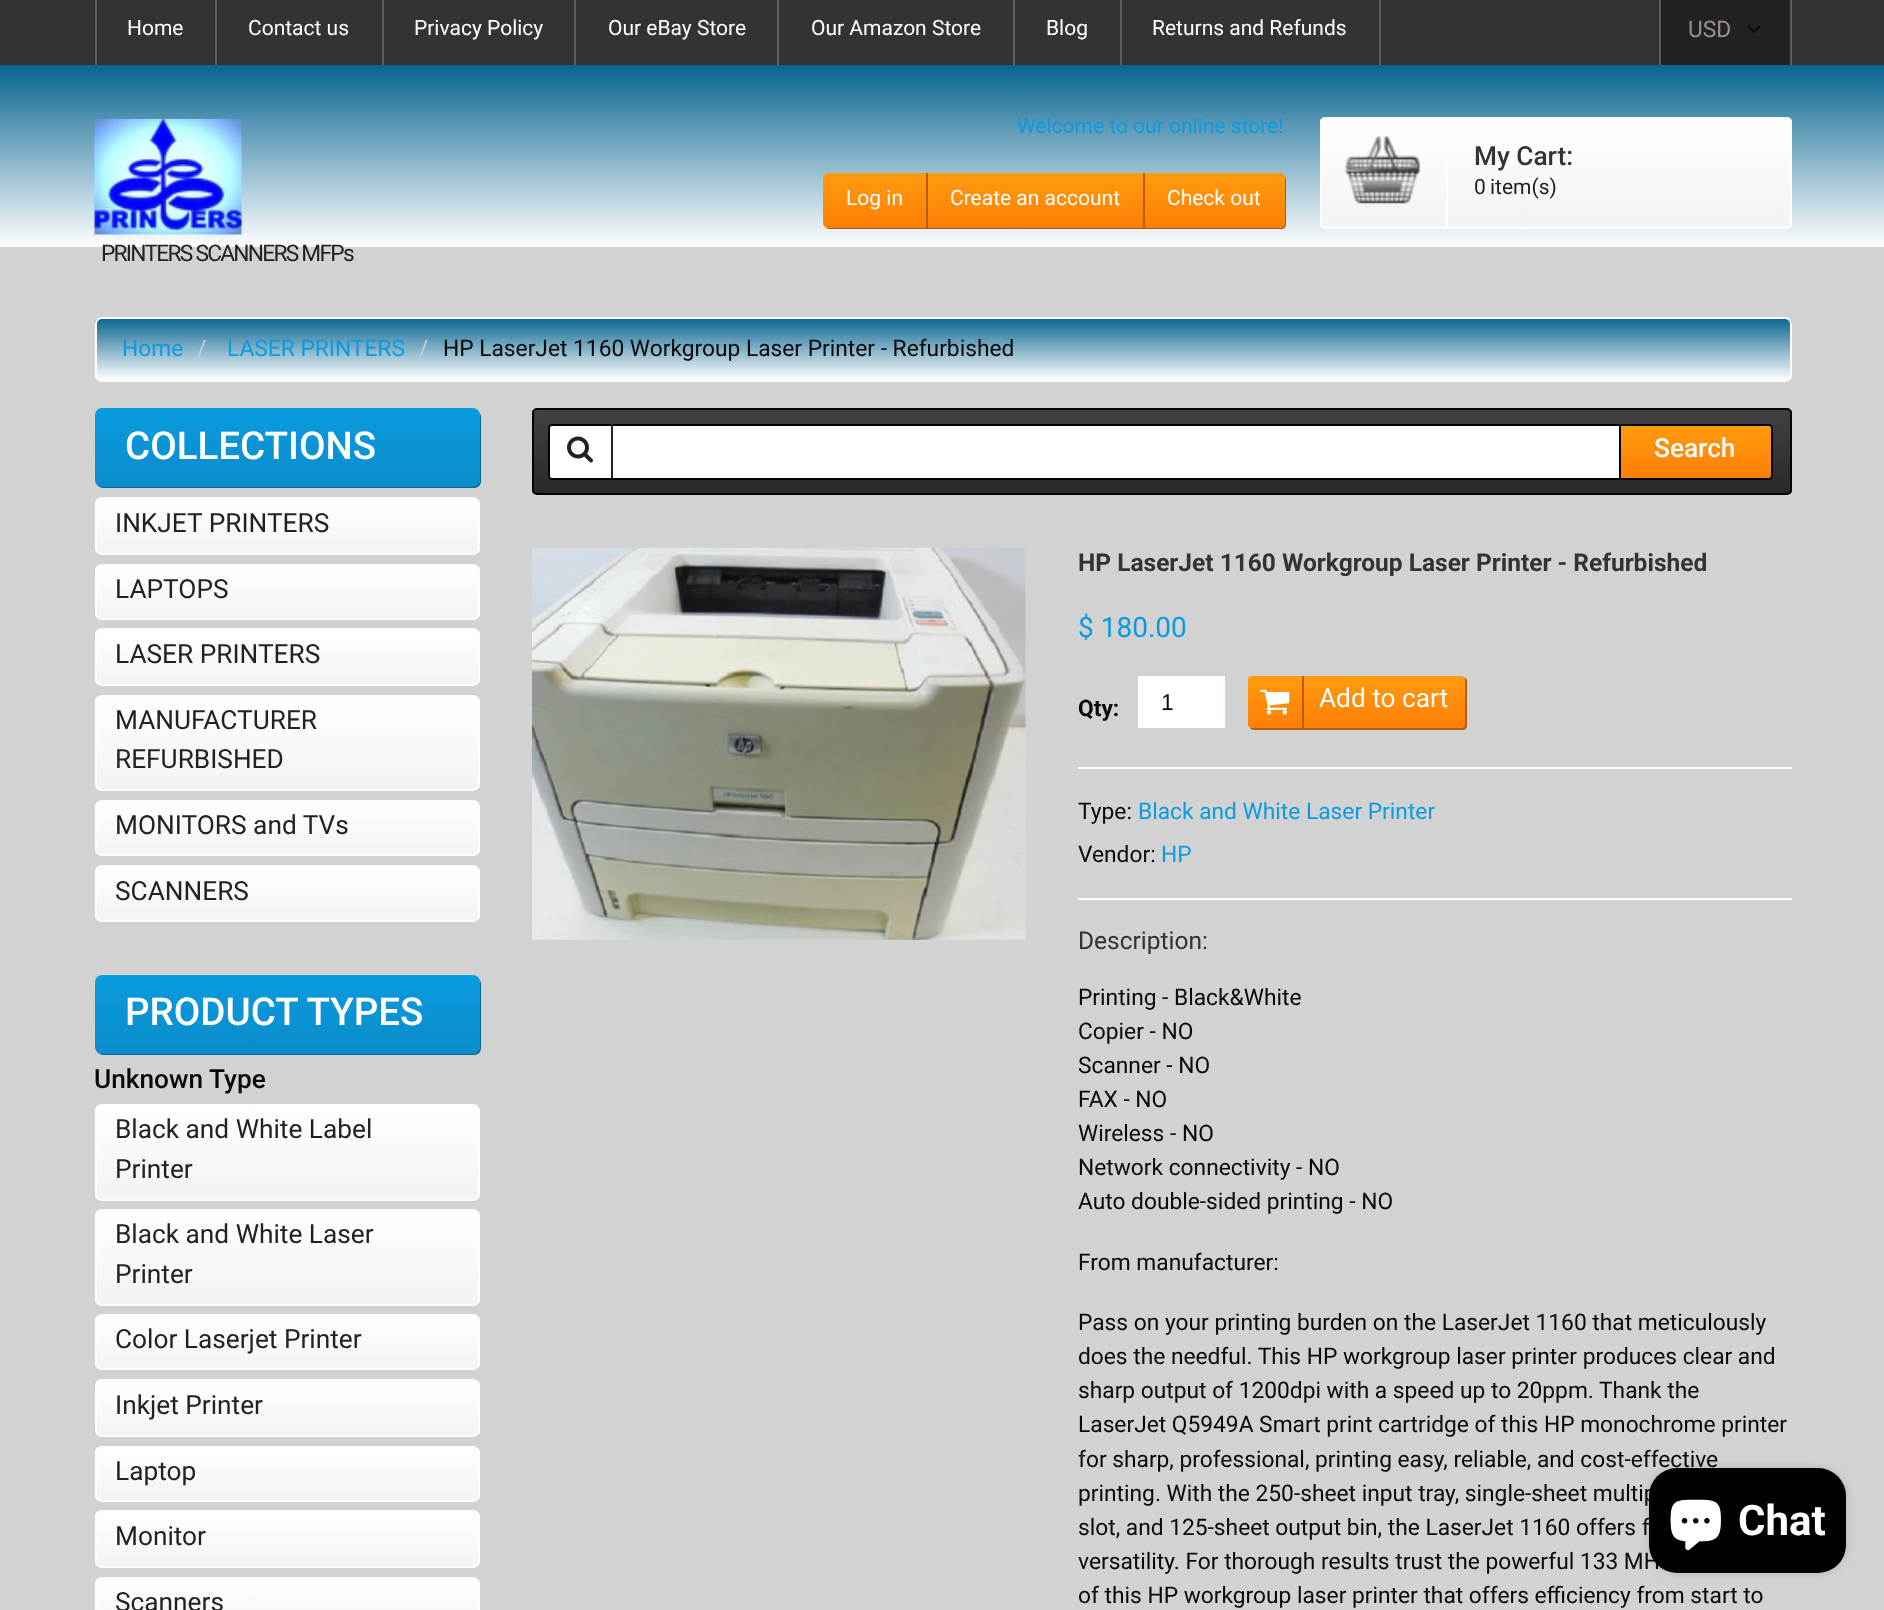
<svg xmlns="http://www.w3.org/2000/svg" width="1884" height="1610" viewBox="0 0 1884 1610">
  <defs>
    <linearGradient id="g1" gradientUnits="userSpaceOnUse" x1="942" y1="65" x2="942" y2="247"><stop offset="0" stop-color="#086591"/><stop offset="1" stop-color="#fefefe"/></linearGradient>
    <linearGradient id="g2" gradientUnits="userSpaceOnUse" x1="1054" y1="173" x2="1054" y2="228"><stop offset="0" stop-color="#ff9c0e"/><stop offset="1" stop-color="#ff7e06"/></linearGradient>
    <clipPath id="clip1"><rect x="1320" y="117" width="472" height="112" rx="5"/></clipPath>
    <linearGradient id="g3" gradientUnits="userSpaceOnUse" x1="1556" y1="119" x2="1556" y2="228"><stop offset="0" stop-color="#ffffff"/><stop offset="1" stop-color="#f3f3f3"/></linearGradient>
    <clipPath id="clip2"><rect x="95" y="317" width="1697" height="65" rx="7"/></clipPath>
    <linearGradient id="g4" gradientUnits="userSpaceOnUse" x1="943" y1="318" x2="943" y2="380"><stop offset="0" stop-color="#086591"/><stop offset="1" stop-color="#fefefe"/></linearGradient>
    <linearGradient id="g5" gradientUnits="userSpaceOnUse" x1="287" y1="408" x2="287" y2="487"><stop offset="0" stop-color="#0a9be0"/><stop offset="1" stop-color="#0b8cca"/></linearGradient>
    <clipPath id="clip3"><rect x="95" y="497" width="385" height="58" rx="7"/></clipPath>
    <linearGradient id="g6" gradientUnits="userSpaceOnUse" x1="287" y1="499" x2="287" y2="553"><stop offset="0" stop-color="#ffffff"/><stop offset="1" stop-color="#f3f3f3"/></linearGradient>
    <clipPath id="clip4"><rect x="95" y="564" width="385" height="56" rx="7"/></clipPath>
    <linearGradient id="g7" gradientUnits="userSpaceOnUse" x1="287" y1="565" x2="287" y2="618"><stop offset="0" stop-color="#ffffff"/><stop offset="1" stop-color="#f3f3f3"/></linearGradient>
    <clipPath id="clip5"><rect x="95" y="628" width="385" height="58" rx="7"/></clipPath>
    <linearGradient id="g8" gradientUnits="userSpaceOnUse" x1="287" y1="630" x2="287" y2="684"><stop offset="0" stop-color="#ffffff"/><stop offset="1" stop-color="#f3f3f3"/></linearGradient>
    <clipPath id="clip6"><rect x="95" y="695" width="385" height="96" rx="7"/></clipPath>
    <linearGradient id="g9" gradientUnits="userSpaceOnUse" x1="287" y1="697" x2="287" y2="789"><stop offset="0" stop-color="#ffffff"/><stop offset="1" stop-color="#f3f3f3"/></linearGradient>
    <clipPath id="clip7"><rect x="95" y="800" width="385" height="56" rx="7"/></clipPath>
    <linearGradient id="g10" gradientUnits="userSpaceOnUse" x1="287" y1="802" x2="287" y2="854"><stop offset="0" stop-color="#ffffff"/><stop offset="1" stop-color="#f3f3f3"/></linearGradient>
    <clipPath id="clip8"><rect x="95" y="865" width="385" height="57" rx="7"/></clipPath>
    <linearGradient id="g11" gradientUnits="userSpaceOnUse" x1="287" y1="866" x2="287" y2="921"><stop offset="0" stop-color="#ffffff"/><stop offset="1" stop-color="#f3f3f3"/></linearGradient>
    <linearGradient id="g12" gradientUnits="userSpaceOnUse" x1="287" y1="975" x2="287" y2="1054"><stop offset="0" stop-color="#0a9be0"/><stop offset="1" stop-color="#0b8cca"/></linearGradient>
    <clipPath id="clip9"><rect x="95" y="1104" width="385" height="97" rx="7"/></clipPath>
    <linearGradient id="g13" gradientUnits="userSpaceOnUse" x1="287" y1="1106" x2="287" y2="1199"><stop offset="0" stop-color="#ffffff"/><stop offset="1" stop-color="#f3f3f3"/></linearGradient>
    <clipPath id="clip10"><rect x="95" y="1209" width="385" height="97" rx="7"/></clipPath>
    <linearGradient id="g14" gradientUnits="userSpaceOnUse" x1="287" y1="1211" x2="287" y2="1304"><stop offset="0" stop-color="#ffffff"/><stop offset="1" stop-color="#f3f3f3"/></linearGradient>
    <clipPath id="clip11"><rect x="95" y="1314" width="385" height="56" rx="7"/></clipPath>
    <linearGradient id="g15" gradientUnits="userSpaceOnUse" x1="287" y1="1316" x2="287" y2="1369"><stop offset="0" stop-color="#ffffff"/><stop offset="1" stop-color="#f3f3f3"/></linearGradient>
    <clipPath id="clip12"><rect x="95" y="1379" width="385" height="58" rx="7"/></clipPath>
    <linearGradient id="g16" gradientUnits="userSpaceOnUse" x1="287" y1="1381" x2="287" y2="1435"><stop offset="0" stop-color="#ffffff"/><stop offset="1" stop-color="#f3f3f3"/></linearGradient>
    <clipPath id="clip13"><rect x="95" y="1446" width="385" height="56" rx="7"/></clipPath>
    <linearGradient id="g17" gradientUnits="userSpaceOnUse" x1="287" y1="1447" x2="287" y2="1500"><stop offset="0" stop-color="#ffffff"/><stop offset="1" stop-color="#f3f3f3"/></linearGradient>
    <clipPath id="clip14"><rect x="95" y="1510" width="385" height="58" rx="7"/></clipPath>
    <linearGradient id="g18" gradientUnits="userSpaceOnUse" x1="287" y1="1512" x2="287" y2="1566"><stop offset="0" stop-color="#ffffff"/><stop offset="1" stop-color="#f3f3f3"/></linearGradient>
    <clipPath id="clip15"><rect x="95" y="1577" width="385" height="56" rx="7"/></clipPath>
    <linearGradient id="g19" gradientUnits="userSpaceOnUse" x1="287" y1="1579" x2="287" y2="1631"><stop offset="0" stop-color="#ffffff"/><stop offset="1" stop-color="#f3f3f3"/></linearGradient>
    <clipPath id="clip16"><rect x="532" y="408" width="1260" height="87" rx="5"/></clipPath>
    <linearGradient id="g20" gradientUnits="userSpaceOnUse" x1="1162" y1="409" x2="1162" y2="494"><stop offset="0" stop-color="#424141"/><stop offset="1" stop-color="#2a2929"/></linearGradient>
    <clipPath id="clip17"><path d="M1619 424H1769C1771 424 1773 426 1773 428V476C1773 478 1771 480 1769 480H1619Z"/></clipPath>
    <linearGradient id="g21" gradientUnits="userSpaceOnUse" x1="1696" y1="425" x2="1696" y2="478"><stop offset="0" stop-color="#ff9c0e"/><stop offset="1" stop-color="#ff7e06"/></linearGradient>
    <linearGradient id="g22" gradientUnits="userSpaceOnUse" x1="1356" y1="676" x2="1356" y2="728"><stop offset="0" stop-color="#ff9c0e"/><stop offset="1" stop-color="#ff7e06"/></linearGradient>
    <filter id="blur1" x="-50%" y="-200%" width="200%" height="500%"><feGaussianBlur stdDeviation="4.5"/></filter>
  </defs>
  <rect width="100%" height="100%" fill="#d2d2d2"/>
  <rect x="0" y="0" width="1884" height="65" fill="#333333"/>
  <rect x="1379" y="0" width="2" height="65" fill="#5c5c5c"/>
  <rect x="95" y="0" width="2" height="65" fill="#5c5c5c"/>
  <text x="127" y="35" font-family="Roboto" font-size="21" fill="#ffffff">Home</text>
  <rect x="215" y="0" width="2" height="65" fill="#5c5c5c"/>
  <text x="248" y="35" font-family="Roboto" font-size="21" fill="#ffffff">Contact us</text>
  <rect x="382" y="0" width="2" height="65" fill="#5c5c5c"/>
  <text x="414" y="35" font-family="Roboto" font-size="21" fill="#ffffff">Privacy Policy</text>
  <rect x="574" y="0" width="2" height="65" fill="#5c5c5c"/>
  <text x="608" y="35" font-family="Roboto" font-size="21" fill="#ffffff">Our eBay Store</text>
  <rect x="777" y="0" width="2" height="65" fill="#5c5c5c"/>
  <text x="811" y="35" font-family="Roboto" font-size="21" fill="#ffffff">Our Amazon Store</text>
  <rect x="1013" y="0" width="2" height="65" fill="#5c5c5c"/>
  <text x="1046" y="35" font-family="Roboto" font-size="21" fill="#ffffff">Blog</text>
  <rect x="1120" y="0" width="2" height="65" fill="#5c5c5c"/>
  <text x="1152" y="35" font-family="Roboto" font-size="21" fill="#ffffff">Returns and Refunds</text>
  <rect x="1661" y="0" width="129" height="65" fill="#222222"/>
  <rect x="1790" y="0" width="2" height="65" fill="#5c5c5c"/>
  <rect x="1659" y="0" width="2" height="65" fill="#5c5c5c"/>
  <text x="1688" y="37" font-family="Roboto" font-size="22.75" fill="#9d8f8f">USD</text>
  <image x="1747" y="25" width="13" height="8" href="img1.png"/>
  <rect x="0" y="65" width="1884" height="182" fill="url(#g1)"/>
  <text x="1017" y="133" font-family="Roboto" font-size="21" fill="#0a9be0">Welcome to our online store!</text>
  <path d="M825 227C826 228 827 229 829 229H1281C1284 229 1286 227 1286 224V180C1286 178 1285 177 1284 176V178V222C1284 225 1282 228 1279 228H828C827 228 826 227 825 227Z" fill="#b85b04"/>
  <rect x="823" y="173" width="462" height="55" rx="5" fill="url(#g2)"/>
  <text x="846" y="205" font-family="Roboto" font-size="21" fill="#ffffff">Log in</text>
  <rect x="926" y="173" width="2" height="55" fill="#b85b04"/>
  <text x="950" y="205" font-family="Roboto" font-size="21" fill="#ffffff">Create an account</text>
  <rect x="1143" y="173" width="2" height="55" fill="#b85b04"/>
  <text x="1167" y="205" font-family="Roboto" font-size="21" fill="#ffffff">Check out</text>
  <g clip-path="url(#clip1)">
    <rect x="1320" y="119" width="472" height="109" fill="url(#g3)"/>
  </g>
  <rect x="1321" y="118" width="470" height="110" rx="4" fill="none" stroke="#fdfdfd" stroke-width="2"/>
  <image x="1345" y="136" width="76" height="68" href="img2.png"/>
  <rect x="1446" y="160" width="2" height="68" fill="#fdfdfd"/>
  <text x="1474" y="165" font-family="Roboto" font-size="26.25" font-weight="500" fill="#333333">My Cart:</text>
  <text x="1474" y="194" font-family="Roboto" font-size="21" fill="#222222">0</text>
  <text x="1490" y="194" font-family="Roboto" font-size="21" fill="#222222">item(s)</text>
  <image x="94" y="119" width="148" height="116" href="img3.png"/>
  <text x="101" y="261" font-family="Roboto" font-size="22.75" letter-spacing="-1.75" fill="#222222">PRINTERS SCANNERS MFPs</text>
  <g clip-path="url(#clip2)">
    <rect x="95" y="319" width="1697" height="61" fill="url(#g4)"/>
  </g>
  <rect x="96" y="318" width="1695" height="63" rx="6" fill="none" stroke="#fdfdfd" stroke-width="2"/>
  <text x="122" y="356" font-family="Roboto" font-size="22.75" fill="#0a9be0">Home</text>
  <text x="197" y="356" font-family="Roboto" font-size="22.75" fill="#cccccc">/</text>
  <text x="227" y="356" font-family="Roboto" font-size="22.75" fill="#0a9be0">LASER PRINTERS</text>
  <text x="419" y="356" font-family="Roboto" font-size="22.75" fill="#cccccc">/</text>
  <text x="443" y="356" font-family="Roboto" font-size="22.75" fill="#080808">HP LaserJet 1160 Workgroup Laser Printer - Refurbished</text>
  <path d="M97 485C99 487 101 488 103 488H474C478 488 481 485 481 481V417C481 415 480 413 479 412L480 415V480C480 483 476 486 472 486H102C100 486 99 486 97 485Z" fill="#086591"/>
  <rect x="95" y="408" width="385" height="79" rx="7" fill="url(#g5)"/>
  <text x="125" y="459" font-family="Roboto" font-size="38.5" font-weight="500" fill="#ffffff">COLLECTIONS</text>
  <g clip-path="url(#clip3)">
    <rect x="95" y="499" width="385" height="54" fill="url(#g6)"/>
  </g>
  <rect x="96" y="498" width="383" height="56" rx="6" fill="none" stroke="#fdfdfd" stroke-width="2"/>
  <text x="115" y="532" font-family="Roboto" font-size="26.25" fill="#222222">INKJET PRINTERS</text>
  <g clip-path="url(#clip4)">
    <rect x="95" y="565" width="385" height="53" fill="url(#g7)"/>
  </g>
  <rect x="96" y="565" width="383" height="54" rx="6" fill="none" stroke="#fdfdfd" stroke-width="2"/>
  <text x="115" y="598" font-family="Roboto" font-size="26.25" fill="#222222">LAPTOPS</text>
  <g clip-path="url(#clip5)">
    <rect x="95" y="630" width="385" height="54" fill="url(#g8)"/>
  </g>
  <rect x="96" y="629" width="383" height="56" rx="6" fill="none" stroke="#fdfdfd" stroke-width="2"/>
  <text x="115" y="663" font-family="Roboto" font-size="26.25" fill="#222222">LASER PRINTERS</text>
  <g clip-path="url(#clip6)">
    <rect x="95" y="697" width="385" height="92" fill="url(#g9)"/>
  </g>
  <rect x="96" y="696" width="383" height="94" rx="6" fill="none" stroke="#fdfdfd" stroke-width="2"/>
  <text x="115" y="729" font-family="Roboto" font-size="26.25" fill="#222222">MANUFACTURER</text>
  <text x="115" y="768" font-family="Roboto" font-size="26.25" fill="#222222">REFURBISHED</text>
  <g clip-path="url(#clip7)">
    <rect x="95" y="802" width="385" height="52" fill="url(#g10)"/>
  </g>
  <rect x="96" y="801" width="383" height="54" rx="6" fill="none" stroke="#fdfdfd" stroke-width="2"/>
  <text x="115" y="834" font-family="Roboto" font-size="26.25" fill="#222222">MONITORS and TVs</text>
  <g clip-path="url(#clip8)">
    <rect x="95" y="866" width="385" height="55" fill="url(#g11)"/>
  </g>
  <rect x="96" y="866" width="383" height="55" rx="6" fill="none" stroke="#fdfdfd" stroke-width="2"/>
  <text x="115" y="900" font-family="Roboto" font-size="26.25" fill="#222222">SCANNERS</text>
  <path d="M97 1052C99 1054 101 1055 103 1055H474C478 1055 481 1052 481 1048V984C481 982 480 980 479 979L480 982V1046C480 1050 476 1054 472 1054H102C100 1054 99 1053 97 1052Z" fill="#086591"/>
  <rect x="95" y="975" width="385" height="79" rx="7" fill="url(#g12)"/>
  <text x="125" y="1025" font-family="Roboto" font-size="38.5" font-weight="500" fill="#ffffff">PRODUCT TYPES</text>
  <text x="94" y="1088" font-family="Roboto" font-size="26.25" font-weight="500" fill="#080808">Unknown Type</text>
  <g clip-path="url(#clip9)">
    <rect x="95" y="1106" width="385" height="93" fill="url(#g13)"/>
  </g>
  <rect x="96" y="1105" width="383" height="95" rx="6" fill="none" stroke="#fdfdfd" stroke-width="2"/>
  <text x="115" y="1138" font-family="Roboto" font-size="26.25" fill="#222222">Black and White Label</text>
  <text x="115" y="1178" font-family="Roboto" font-size="26.25" fill="#222222">Printer</text>
  <g clip-path="url(#clip10)">
    <rect x="95" y="1211" width="385" height="93" fill="url(#g14)"/>
  </g>
  <rect x="96" y="1210" width="383" height="95" rx="6" fill="none" stroke="#fdfdfd" stroke-width="2"/>
  <text x="115" y="1243" font-family="Roboto" font-size="26.25" fill="#222222">Black and White Laser</text>
  <text x="115" y="1283" font-family="Roboto" font-size="26.25" fill="#222222">Printer</text>
  <g clip-path="url(#clip11)">
    <rect x="95" y="1316" width="385" height="53" fill="url(#g15)"/>
  </g>
  <rect x="96" y="1315" width="383" height="54" rx="6" fill="none" stroke="#fdfdfd" stroke-width="2"/>
  <text x="115" y="1348" font-family="Roboto" font-size="26.25" fill="#222222">Color Laserjet Printer</text>
  <g clip-path="url(#clip12)">
    <rect x="95" y="1381" width="385" height="54" fill="url(#g16)"/>
  </g>
  <rect x="96" y="1380" width="383" height="56" rx="6" fill="none" stroke="#fdfdfd" stroke-width="2"/>
  <text x="115" y="1414" font-family="Roboto" font-size="26.25" fill="#222222">Inkjet Printer</text>
  <g clip-path="url(#clip13)">
    <rect x="95" y="1447" width="385" height="53" fill="url(#g17)"/>
  </g>
  <rect x="96" y="1447" width="383" height="54" rx="6" fill="none" stroke="#fdfdfd" stroke-width="2"/>
  <text x="115" y="1480" font-family="Roboto" font-size="26.25" fill="#222222">Laptop</text>
  <g clip-path="url(#clip14)">
    <rect x="95" y="1512" width="385" height="54" fill="url(#g18)"/>
  </g>
  <rect x="96" y="1511" width="383" height="56" rx="6" fill="none" stroke="#fdfdfd" stroke-width="2"/>
  <text x="115" y="1545" font-family="Roboto" font-size="26.25" fill="#222222">Monitor</text>
  <g clip-path="url(#clip15)">
    <rect x="95" y="1579" width="385" height="31" fill="url(#g19)"/>
  </g>
  <rect x="96" y="1578" width="383" height="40" rx="6" fill="none" stroke="#fdfdfd" stroke-width="2"/>
  <text x="115" y="1611" font-family="Roboto" font-size="26.25" fill="#222222">Scanners</text>
  <g clip-path="url(#clip16)">
    <rect x="532" y="410" width="1260" height="84" fill="url(#g20)"/>
  </g>
  <rect x="533" y="409" width="1258" height="85" rx="4" fill="none" stroke="#030303" stroke-width="2"/>
  <path d="M552 425H1620V479H552C550.5 479 549 477.5 549 476V428C549 426.5 550.5 425 552 425Z" fill="#ffffff" stroke="#030303" stroke-width="2"/>
  <rect x="611" y="424" width="2" height="54" fill="#222222"/>
  <image x="567" y="436" width="26" height="27" href="img4.png"/>
  <g clip-path="url(#clip17)">
    <rect x="1621" y="425" width="152" height="53" fill="url(#g21)"/>
  </g>
  <path d="M1620 425H1769C1770.5 425 1772 426.5 1772 428V476C1772 477.5 1770.5 479 1769 479H1620Z" fill="none" stroke="#030303" stroke-width="2"/>
  <text x="1654" y="457" font-family="Roboto" font-size="26.25" font-weight="500" fill="#ffffff">Search</text>
  <image x="532" y="547" width="494" height="393" href="img5.png"/>
  <text x="1078" y="571" font-family="Roboto" font-size="24.5" font-weight="bold" fill="#333333">HP LaserJet 1160 Workgroup Laser Printer - Refurbished</text>
  <text x="1078" y="637" font-family="Roboto" font-size="28" fill="#0a9be0">$ 180.00</text>
  <text x="1078" y="716" font-family="Roboto" font-size="22.75" font-weight="bold" fill="#080808">Qty:</text>
  <rect x="1139" y="677" width="85" height="50" fill="#ffffff" stroke="#fdfdfd" stroke-width="2"/>
  <text x="1161" y="710" font-family="Liberation Sans" font-size="22.75" fill="#080808">1</text>
  <path d="M1250 728C1251 729 1252 730 1254 730H1463C1465 730 1467 728 1467 726V681C1467 679 1466 678 1464 677L1465 679V724C1465 726 1463 728 1461 728Z" fill="#b85b04"/>
  <rect x="1248" y="676" width="217" height="52" rx="4" fill="url(#g22)"/>
  <rect x="1302" y="676" width="2" height="52" fill="#b85b04"/>
  <image x="1260" y="689" width="30" height="26" href="img6.png"/>
  <text x="1319" y="707" font-family="Roboto" font-size="26.25" fill="#ffffff">Add to cart</text>
  <rect x="1078" y="767" width="714" height="2" fill="#fdfdfd"/>
  <rect x="1078" y="898" width="714" height="2" fill="#fdfdfd"/>
  <text x="1078" y="819" font-family="Roboto" font-size="22.75" fill="#080808">Type:</text>
  <text x="1138" y="819" font-family="Roboto" font-size="22.75" fill="#0a9be0">Black and White Laser Printer</text>
  <text x="1078" y="862" font-family="Roboto" font-size="22.75" fill="#080808">Vendor:</text>
  <text x="1161" y="862" font-family="Roboto" font-size="22.75" fill="#0a9be0">HP</text>
  <text x="1078" y="949" font-family="Roboto" font-size="24.5" fill="#333333">Description:</text>
  <text x="1078" y="1005" font-family="Roboto" font-size="22.75" fill="#080808">Printing - Black&amp;White</text>
  <text x="1078" y="1039" font-family="Roboto" font-size="22.75" fill="#080808">Copier - NO</text>
  <text x="1078" y="1073" font-family="Roboto" font-size="22.75" fill="#080808">Scanner - NO</text>
  <text x="1078" y="1107" font-family="Roboto" font-size="22.75" fill="#080808">FAX - NO</text>
  <text x="1078" y="1141" font-family="Roboto" font-size="22.75" fill="#080808">Wireless - NO</text>
  <text x="1078" y="1175" font-family="Roboto" font-size="22.75" fill="#080808">Network connectivity - NO</text>
  <text x="1078" y="1209" font-family="Roboto" font-size="22.75" fill="#080808">Auto double-sided printing - NO</text>
  <text x="1078" y="1270" font-family="Roboto" font-size="22.75" fill="#080808">From manufacturer:</text>
  <text x="1078" y="1330" font-family="Roboto" font-size="22.75" fill="#080808">Pass on your printing burden on the LaserJet 1160 that meticulously</text>
  <text x="1078" y="1364" font-family="Roboto" font-size="22.75" fill="#080808">does the needful. This HP workgroup laser printer produces clear and</text>
  <text x="1078" y="1398" font-family="Roboto" font-size="22.75" fill="#080808">sharp output of 1200dpi with a speed up to 20ppm. Thank the</text>
  <text x="1078" y="1432" font-family="Roboto" font-size="22.75" fill="#080808">LaserJet Q5949A Smart print cartridge of this HP monochrome printer</text>
  <text x="1078" y="1467" font-family="Roboto" font-size="22.75" fill="#080808">for sharp, professional, printing easy, reliable, and cost-effective</text>
  <text x="1078" y="1501" font-family="Roboto" font-size="22.75" fill="#080808">printing. With the 250-sheet input tray, single-sheet multip</text>
  <text x="1078" y="1535" font-family="Roboto" font-size="22.75" fill="#080808">slot, and 125-sheet output bin, the LaserJet 1160 offers f</text>
  <text x="1078" y="1569" font-family="Roboto" font-size="22.75" fill="#080808">versatility. For thorough results trust the powerful 133 MH</text>
  <text x="1078" y="1603" font-family="Roboto" font-size="22.75" fill="#080808">of this HP workgroup laser printer that offers efficiency from start to</text>
  <rect x="1649" y="1468" width="197" height="105" rx="28" fill="#000000" fill-opacity="0.15" filter="url(#blur1)"/>
  <rect x="1649" y="1468" width="197" height="105" rx="28" fill="#000000"/>
  <image x="1670" y="1499" width="51" height="52" href="img7.png"/>
  <text x="1738" y="1535" font-family="Roboto" font-size="42" font-weight="bold" fill="#ffffff">Chat</text>
</svg>
